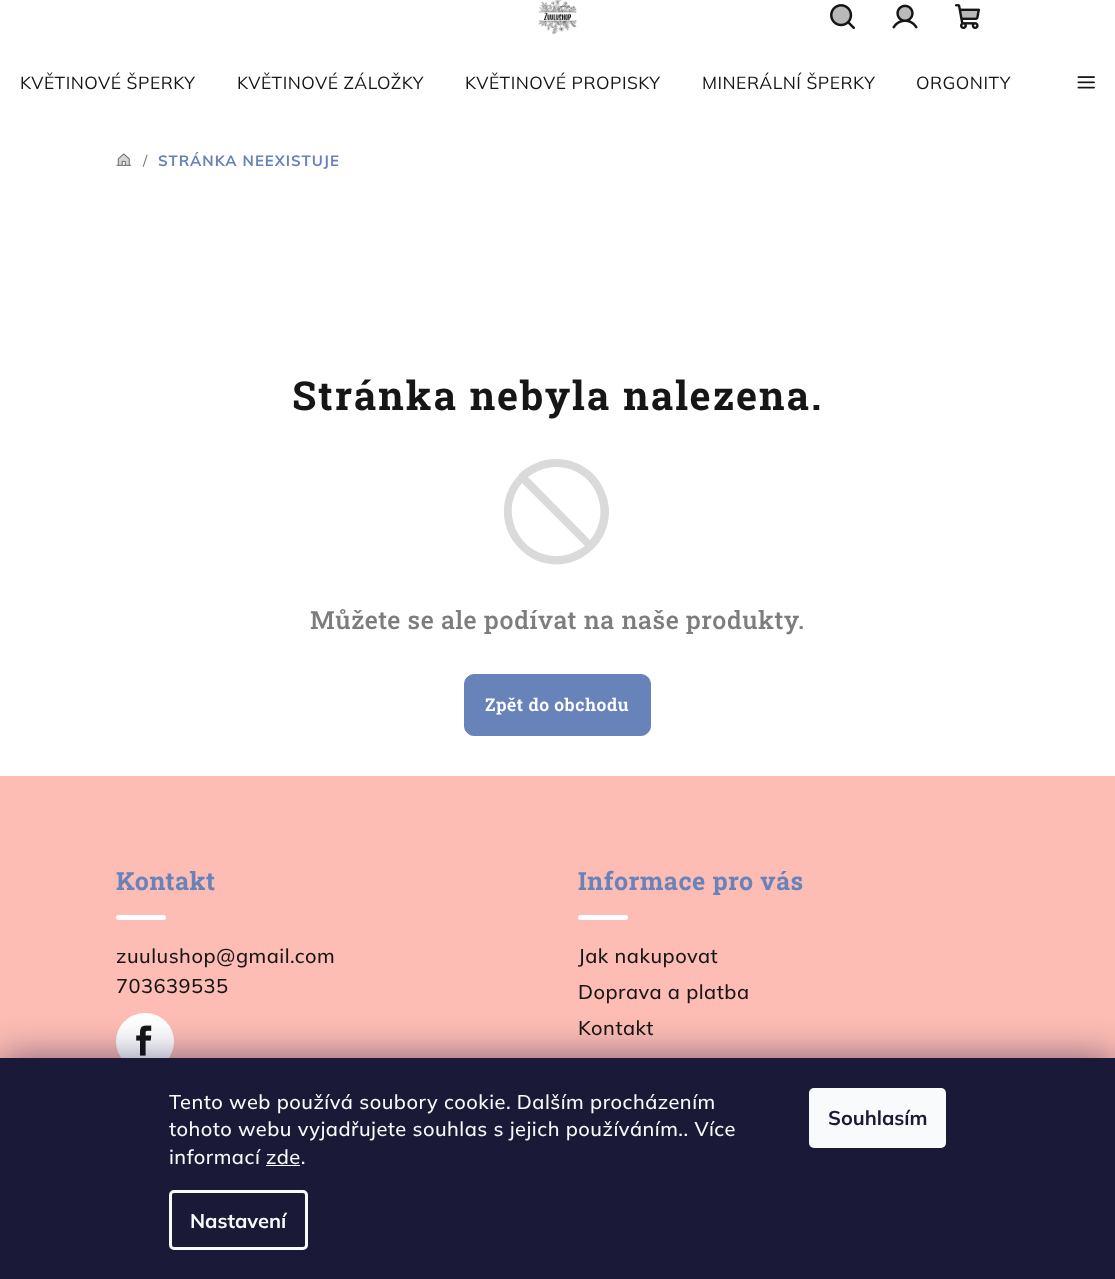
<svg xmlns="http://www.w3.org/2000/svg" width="1115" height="1279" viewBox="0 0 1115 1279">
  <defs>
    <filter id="blur1" x="-50%" y="-200%" width="200%" height="500%"><feGaussianBlur stdDeviation="19"/></filter>
  </defs>
  <rect width="100%" height="100%" fill="#ffffff"/>
  <image x="538" y="0" width="39" height="34" href="img1.png"/>
  <image x="830" y="4" width="25" height="25" href="img2.png"/>
  <path d="M841 25C854 25 854 5.5 841 5.5C828 5.5 828 25 841 25Z" fill="#161616" fill-opacity="0.3"/>
  <image x="892" y="4" width="26" height="25" href="img3.png"/>
  <image x="898" y="7" width="14" height="13" href="img4.png"/>
  <image x="955" y="4" width="25" height="25" href="img5.png"/>
  <rect x="961" y="11" width="17" height="7" fill="#161616" fill-opacity="0.3"/>
  <text x="20" y="89" font-family="Mulish" font-size="17.5" letter-spacing="0.5" fill="#161616">KVĚTINOVÉ ŠPERKY</text>
  <text x="237" y="89" font-family="Mulish" font-size="17.5" letter-spacing="0.5" fill="#161616">KVĚTINOVÉ ZÁLOŽKY</text>
  <text x="465" y="89" font-family="Mulish" font-size="17.5" letter-spacing="0.5" fill="#161616">KVĚTINOVÉ PROPISKY</text>
  <text x="702" y="89" font-family="Mulish" font-size="17.5" letter-spacing="0.5" fill="#161616">MINERÁLNÍ ŠPERKY</text>
  <text x="916" y="89" font-family="Mulish" font-size="17.5" letter-spacing="0.5" fill="#161616">ORGONITY</text>
  <image x="1077" y="76" width="18" height="13" href="img6.png"/>
  <image x="116" y="153" width="16" height="13" href="img7.png"/>
  <image x="118" y="154" width="12" height="12" href="img8.png"/>
  <text x="143" y="166" font-family="Mulish" font-size="15" letter-spacing="1" fill="#747474">/</text>
  <text x="158" y="166" font-family="Mulish" font-size="15" font-weight="bold" letter-spacing="1" fill="#6883ba">STRÁNKA NEEXISTUJE</text>
  <text x="292" y="410" font-family="Roboto Slab" font-size="40" font-weight="bold" letter-spacing="2" fill="#161616">Stránka nebyla nalezena.</text>
  <path d="M556 459C542 459 529 465 519 474V475C498 496 499 530 521 550C556 583 611 555 609 509C608 497 603 485 595 476C585 465 571 459 556 459ZM556 467C594 467 614 511 590 540L528 477C536 471 546 467 556 467ZM522 483L585 546C578 551 569 555 560 556C521 559 497 513 522 483Z" fill="#dadada"/>
  <text x="310" y="629" font-family="Roboto Slab" font-size="25" font-weight="500" letter-spacing="0.5" fill="#7d7d7d">Můžete se ale podívat na naše produkty.</text>
  <rect x="464.5" y="674.5" width="186" height="61" rx="9.5" fill="#6883ba" stroke="#6883ba"/>
  <text x="485" y="711" font-family="Roboto Slab" font-size="17.5" font-weight="600" letter-spacing="0.5" fill="#ffffff">Zpět do obchodu</text>
  <rect x="0" y="776" width="1115" height="282" fill="#fdbcb4"/>
  <text x="116" y="890" font-family="Roboto Slab" font-size="25" font-weight="bold" letter-spacing="0.5" fill="#6883ba">Kontakt</text>
  <rect x="116" y="915" width="50" height="5" rx="2.5" fill="#ffffff"/>
  <text x="116" y="963" font-family="Mulish" font-size="20" font-weight="500" letter-spacing="0.5" fill="#161616">zuulushop@gmail.com</text>
  <text x="116" y="993" font-family="Mulish" font-size="20" font-weight="500" letter-spacing="0.5" fill="#161616">703639535</text>
  <rect x="116" y="1013" width="58" height="57" rx="28.5" fill="#ffffff"/>
  <image x="136" y="1025" width="16" height="31" href="img9.png"/>
  <text x="578" y="890" font-family="Roboto Slab" font-size="25" font-weight="bold" letter-spacing="0.5" fill="#6883ba">Informace pro vás</text>
  <rect x="578" y="915" width="50" height="5" rx="2.5" fill="#ffffff"/>
  <text x="578" y="963" font-family="Mulish" font-size="20" font-weight="500" letter-spacing="0.5" fill="#161616">Jak nakupovat</text>
  <text x="578" y="999" font-family="Mulish" font-size="20" font-weight="500" letter-spacing="0.5" fill="#161616">Doprava a platba</text>
  <text x="578" y="1035" font-family="Mulish" font-size="20" font-weight="500" letter-spacing="0.5" fill="#161616">Kontakt</text>
  <rect x="0" y="1058" width="1115" height="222" fill="#1b1939" fill-opacity="0.5" filter="url(#blur1)"/>
  <rect x="0" y="1058" width="1115" height="221" fill="#1a1937"/>
  <text x="169" y="1109" font-family="Mulish" font-size="20" font-weight="500" letter-spacing="0.5" fill="#f8fafb">Tento web používá soubory cookie. Dalším procházením</text>
  <text x="169" y="1136" font-family="Mulish" font-size="20" font-weight="500" letter-spacing="0.5" fill="#f8fafb">tohoto webu vyjadřujete souhlas s jejich používáním.. Více</text>
  <text x="169" y="1164" font-family="Mulish" font-size="20" font-weight="500" letter-spacing="0.5" fill="#f8fafb">informací zde.</text>
  <rect x="266" y="1165" width="34" height="1" fill="#f8fafb"/>
  <rect x="170.5" y="1191.5" width="136" height="57" rx="3.5" fill="none" stroke="#f8fafb" stroke-width="3"/>
  <text x="190" y="1228" font-family="Mulish" font-size="20" font-weight="bold" fill="#f8fafb">Nastavení</text>
  <rect x="809" y="1088" width="137" height="60" rx="5" fill="#f8fafb"/>
  <text x="828" y="1125" font-family="Mulish" font-size="20" font-weight="bold" fill="#1a1937">Souhlasím</text>
</svg>
